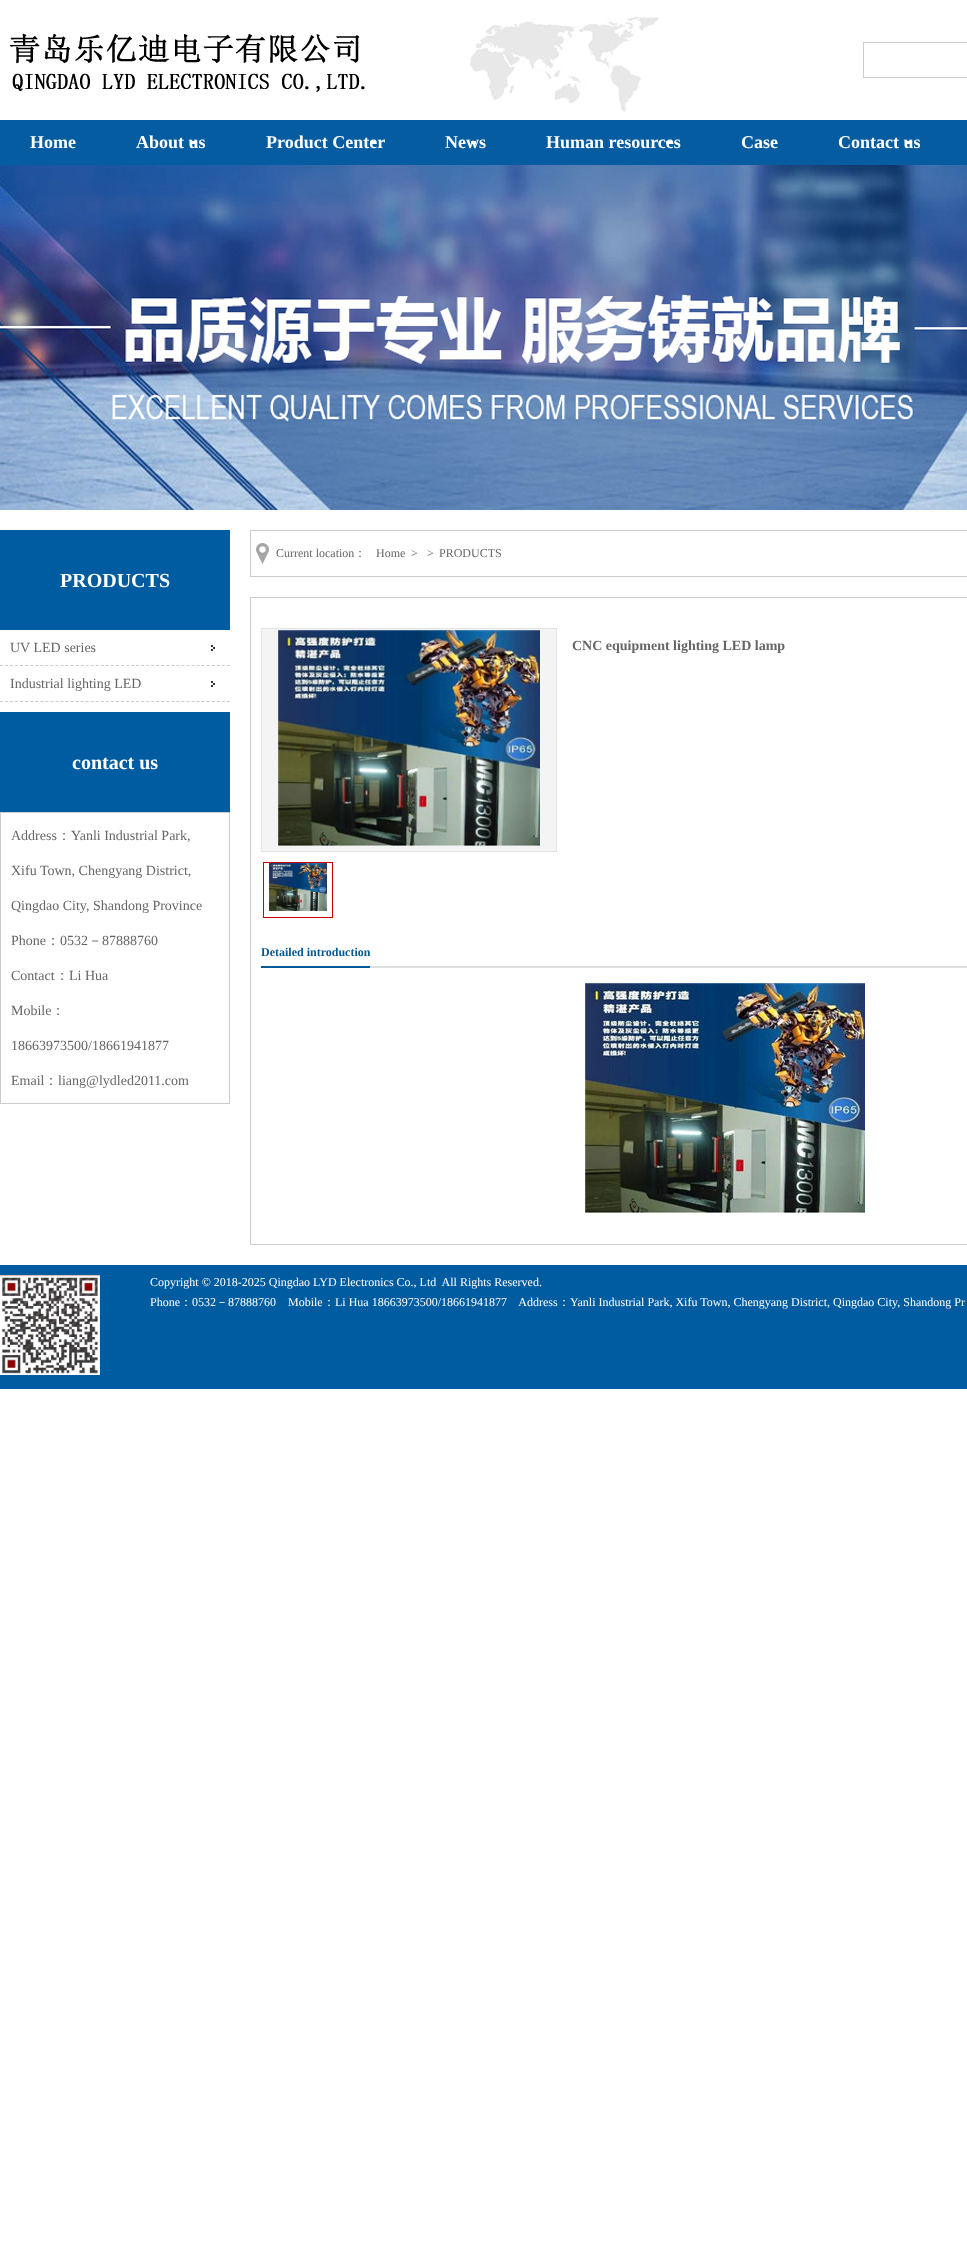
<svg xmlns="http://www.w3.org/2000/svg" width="967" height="2261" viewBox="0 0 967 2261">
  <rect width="100%" height="100%" fill="#ffffff"/>
  <image x="10" y="33" width="355" height="59" href="img1.png"/>
  <image x="469" y="16" width="190" height="96" href="img2.png"/>
  <rect x="863.5" y="42.5" width="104" height="35" fill="none" stroke="#cccccc"/>
  <rect x="0" y="120" width="967" height="45" fill="#055ca0"/>
  <text x="30" y="148" font-family="Liberation Serif" font-size="18" font-weight="bold" fill="#ffffff">Home</text>
  <rect x="191" y="141" width="5" height="3" fill="#ffffff"/>
  <text x="136" y="148" font-family="Liberation Serif" font-size="18" font-weight="bold" fill="#ffffff">About us</text>
  <rect x="370" y="141" width="5" height="3" fill="#ffffff"/>
  <text x="266" y="148" font-family="Liberation Serif" font-size="18" font-weight="bold" fill="#ffffff">Product Center</text>
  <rect x="471" y="141" width="5" height="3" fill="#ffffff"/>
  <text x="445" y="148" font-family="Liberation Serif" font-size="18" font-weight="bold" fill="#ffffff">News</text>
  <rect x="666" y="141" width="5" height="3" fill="#ffffff"/>
  <text x="546" y="148" font-family="Liberation Serif" font-size="18" font-weight="bold" fill="#ffffff">Human resources</text>
  <text x="741" y="148" font-family="Liberation Serif" font-size="18" font-weight="bold" fill="#ffffff">Case</text>
  <rect x="905" y="141" width="5" height="3" fill="#ffffff"/>
  <text x="838" y="148" font-family="Liberation Serif" font-size="18" font-weight="bold" fill="#ffffff">Contact us</text>
  <image x="0" y="165" width="967" height="345" href="img3.png"/>
  <rect x="0" y="530" width="230" height="100" fill="#005ca1"/>
  <text x="60" y="587" font-family="Liberation Serif" font-size="20" font-weight="bold" fill="#ffffff">PRODUCTS</text>
  <path d="M0 665.5H230" fill="none" stroke="#cccccc" stroke-dasharray="3 2.04"/>
  <text x="10" y="652" font-family="Liberation Serif" font-size="14" fill="#666666">UV LED series</text>
  <image x="211" y="645" width="4" height="6" href="img4.png"/>
  <path d="M0 701.5H230" fill="none" stroke="#cccccc" stroke-dasharray="3 2.04"/>
  <text x="10" y="688" font-family="Liberation Serif" font-size="14" fill="#666666">Industrial lighting LED</text>
  <image x="211" y="681" width="4" height="6" href="img4.png"/>
  <rect x="0" y="712" width="230" height="100" fill="#005ca1"/>
  <text x="72" y="769" font-family="Liberation Serif" font-size="20" font-weight="bold" fill="#ffffff">contact us</text>
  <rect x="0.5" y="812.5" width="229" height="291" fill="none" stroke="#cccccc"/>
  <text x="11" y="840" font-family="Liberation Serif" font-size="14" fill="#666666">Address</text>
  <text x="57" y="840" font-family="WenQuanYi Zen Hei" font-size="14" font-weight="500" fill="#666666">：</text>
  <text x="71" y="840" font-family="Liberation Serif" font-size="14" fill="#666666">Yanli Industrial Park,</text>
  <text x="11" y="875" font-family="Liberation Serif" font-size="14" fill="#666666">Xifu Town, Chengyang District,</text>
  <text x="11" y="910" font-family="Liberation Serif" font-size="14" fill="#666666">Qingdao City, Shandong Province</text>
  <text x="11" y="945" font-family="Liberation Serif" font-size="14" fill="#666666">Phone</text>
  <text x="46" y="945" font-family="WenQuanYi Zen Hei" font-size="14" font-weight="500" fill="#666666">：</text>
  <text x="60" y="945" font-family="Liberation Serif" font-size="14" fill="#666666">0532</text>
  <text x="88" y="945" font-family="WenQuanYi Zen Hei" font-size="14" font-weight="500" fill="#666666">－</text>
  <text x="102" y="945" font-family="Liberation Serif" font-size="14" fill="#666666">87888760</text>
  <text x="11" y="980" font-family="Liberation Serif" font-size="14" fill="#666666">Contact</text>
  <text x="55" y="980" font-family="WenQuanYi Zen Hei" font-size="14" font-weight="500" fill="#666666">：</text>
  <text x="69" y="980" font-family="Liberation Serif" font-size="14" fill="#666666">Li Hua</text>
  <text x="11" y="1015" font-family="Liberation Serif" font-size="14" fill="#666666">Mobile</text>
  <text x="51" y="1015" font-family="WenQuanYi Zen Hei" font-size="14" font-weight="500" fill="#666666">：</text>
  <text x="11" y="1050" font-family="Liberation Serif" font-size="14" fill="#666666">18663973500/18661941877</text>
  <text x="11" y="1085" font-family="Liberation Serif" font-size="14" fill="#666666">Email</text>
  <text x="44" y="1085" font-family="WenQuanYi Zen Hei" font-size="14" font-weight="500" fill="#666666">：</text>
  <text x="58" y="1085" font-family="Liberation Serif" font-size="14" fill="#666666">liang@lydled2011.com</text>
  <image x="256" y="543" width="13" height="21" href="img5.png"/>
  <rect x="250.5" y="530.5" width="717" height="46" fill="none" stroke="#cccccc"/>
  <text x="276" y="557" font-family="Liberation Serif" font-size="12" fill="#666666">Current location</text>
  <text x="354" y="557" font-family="WenQuanYi Zen Hei" font-size="12" font-weight="500" fill="#666666">：</text>
  <text x="376" y="557" font-family="Liberation Serif" font-size="12" fill="#666666">Home</text>
  <text x="411" y="557" font-family="Liberation Serif" font-size="12" fill="#666666">&gt;</text>
  <text x="427" y="557" font-family="Liberation Serif" font-size="12" fill="#666666">&gt;</text>
  <text x="439" y="557" font-family="Liberation Serif" font-size="12" fill="#666666">PRODUCTS</text>
  <rect x="250.5" y="597.5" width="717" height="647" fill="none" stroke="#cccccc"/>
  <rect x="261.5" y="628.5" width="295" height="223" fill="#f4f4f4" stroke="#e4e4e4"/>
  <image x="278" y="630" width="262" height="216" href="img6.png"/>
  <rect x="263.5" y="862.5" width="69" height="55" fill="none" stroke="#cc0000"/>
  <image x="269" y="863" width="58" height="48" href="img7.png"/>
  <text x="572" y="650" font-family="Liberation Serif" font-size="14" font-weight="bold" fill="#666666">CNC equipment lighting LED lamp</text>
  <rect x="370" y="966" width="597" height="2" fill="#dddddd"/>
  <rect x="261" y="966" width="109" height="2" fill="#005895"/>
  <text x="261" y="956" font-family="Liberation Serif" font-size="12" font-weight="bold" fill="#005895">Detailed introduction</text>
  <image x="585" y="983" width="280" height="230" href="img8.png"/>
  <rect x="0" y="1265" width="967" height="124" fill="#005ca1"/>
  <image x="0" y="1275" width="100" height="100" href="img9.png"/>
  <text x="150" y="1286" font-family="Liberation Serif" font-size="12" fill="#ffffff" xml:space="preserve">Copyright © 2018-2025 Qingdao LYD Electronics Co., Ltd  All Rights Reserved.</text>
  <text x="150" y="1306" font-family="Liberation Serif" font-size="12" fill="#ffffff">Phone</text>
  <text x="180" y="1306" font-family="WenQuanYi Zen Hei" font-size="12" font-weight="500" fill="#ffffff">：</text>
  <text x="192" y="1306" font-family="Liberation Serif" font-size="12" fill="#ffffff">0532</text>
  <text x="216" y="1306" font-family="WenQuanYi Zen Hei" font-size="12" font-weight="500" fill="#ffffff">－</text>
  <text x="228" y="1306" font-family="Liberation Serif" font-size="12" fill="#ffffff" xml:space="preserve">87888760    Mobile</text>
  <text x="323" y="1306" font-family="WenQuanYi Zen Hei" font-size="12" font-weight="500" fill="#ffffff">：</text>
  <text x="335" y="1306" font-family="Liberation Serif" font-size="12" fill="#ffffff" xml:space="preserve">Li Hua 18663973500/18661941877    Address</text>
  <text x="558" y="1306" font-family="WenQuanYi Zen Hei" font-size="12" font-weight="500" fill="#ffffff">：</text>
  <text x="570" y="1306" font-family="Liberation Serif" font-size="12" fill="#ffffff">Yanli Industrial Park, Xifu Town, Chengyang District, Qingdao City, Shandong Pr</text>
</svg>
